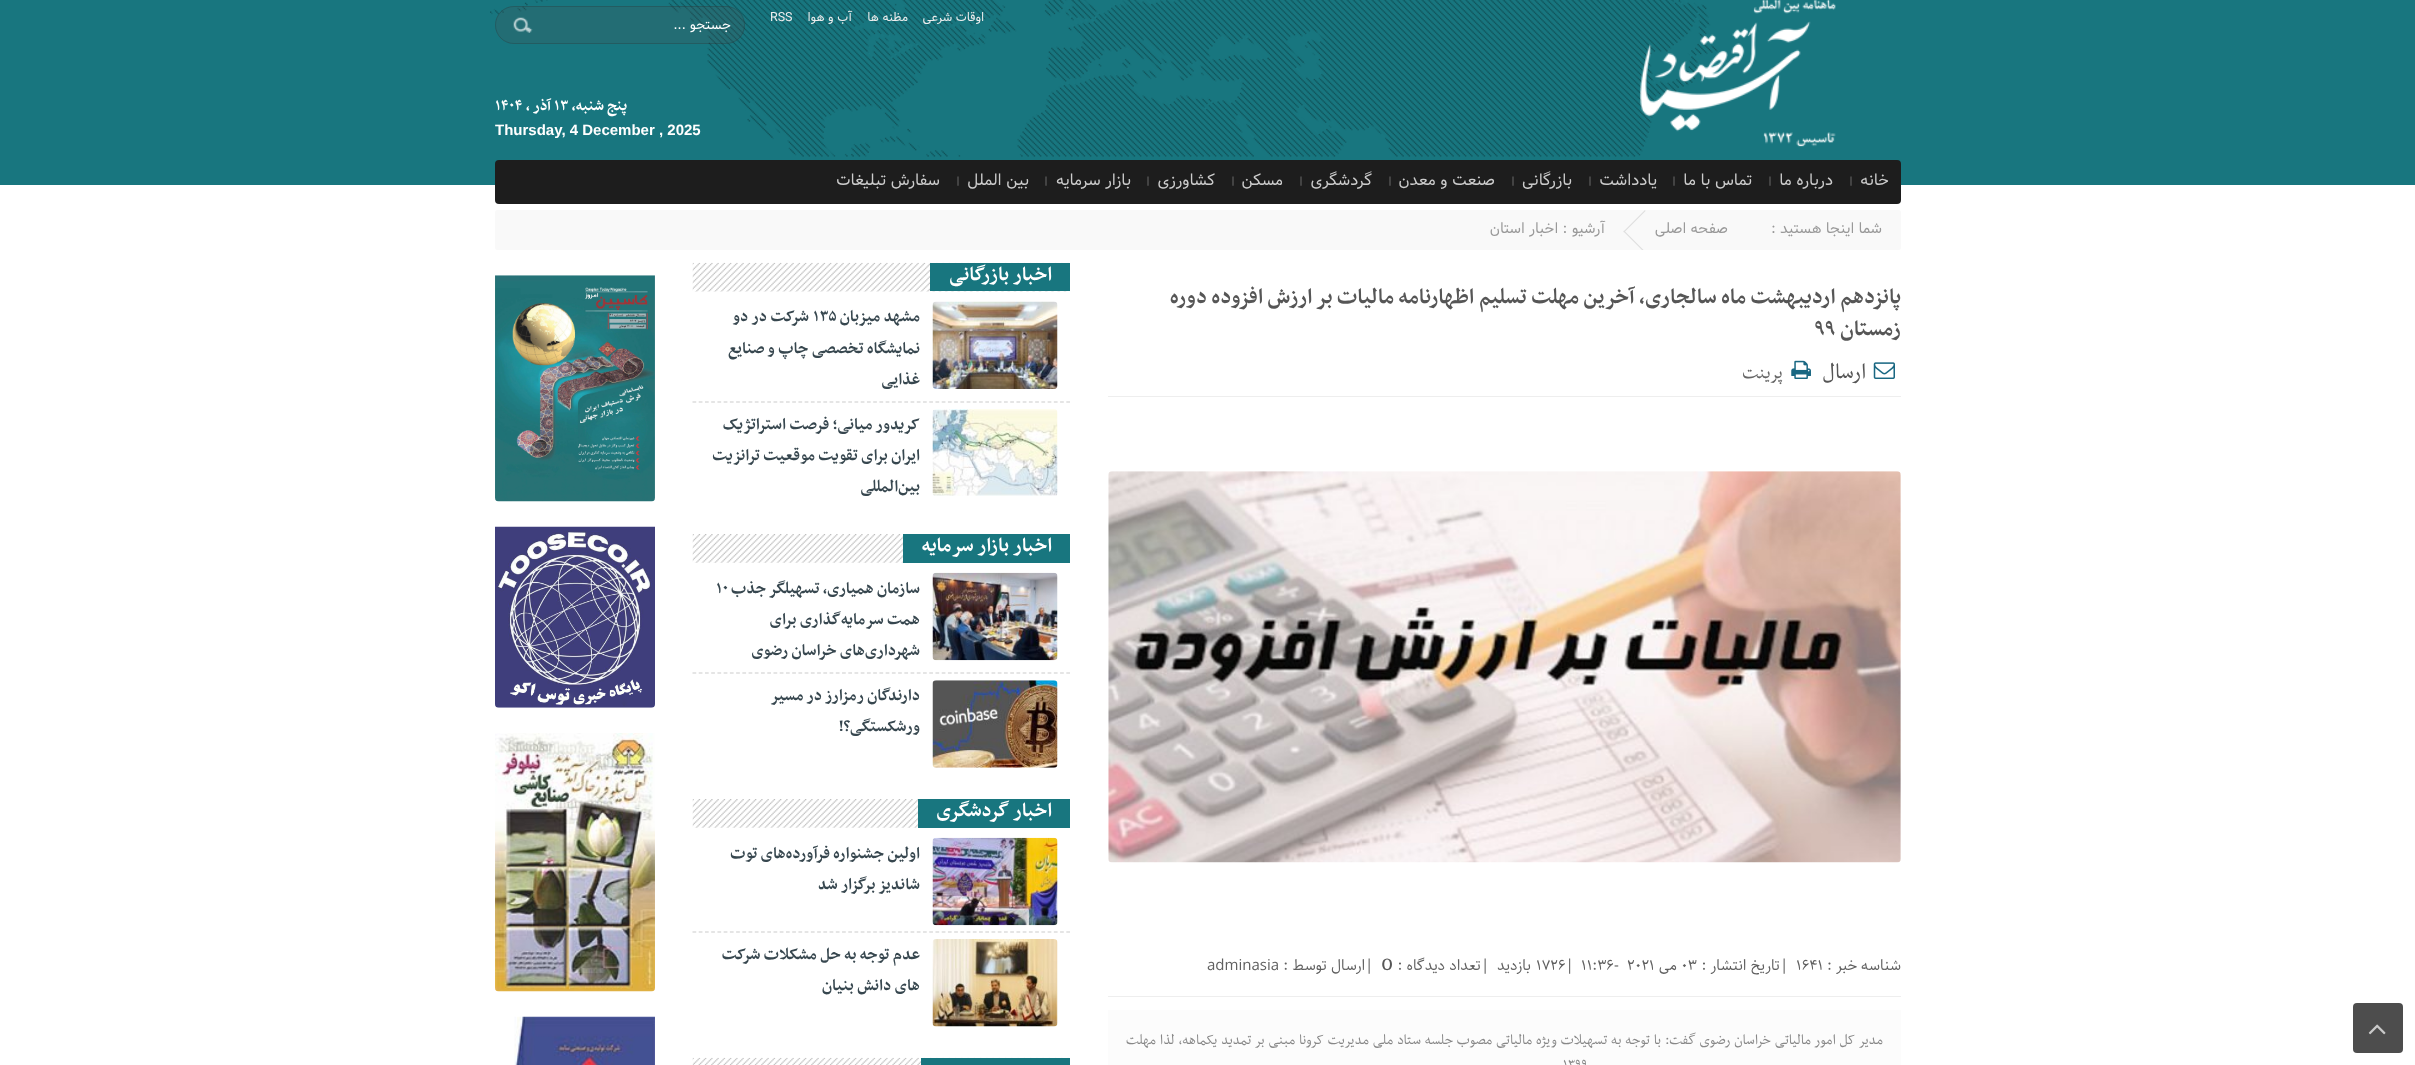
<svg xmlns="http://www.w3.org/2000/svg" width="2415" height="1065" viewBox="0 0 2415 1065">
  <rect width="100%" height="100%" fill="#ffffff"/>
  <rect x="0" y="0" width="2415" height="185" fill="#18767f"/>
  <image x="490" y="0" width="1228" height="157" href="img1.png"/>
  <image x="1640" y="0" width="196" height="147" href="img2.png"/>
  <text x="984" y="21" font-family="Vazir" font-size="12.5" direction="rtl" fill="#eeeeee">اوقات شرعی</text>
  <text x="908" y="21" font-family="Vazir" font-size="12.5" direction="rtl" fill="#eeeeee">مظنه ها</text>
  <text x="852" y="21" font-family="Vazir" font-size="12.5" direction="rtl" fill="#eeeeee">آب و هوا</text>
  <text x="770" y="21" font-family="Vazir" font-size="12.5" fill="#eeeeee">RSS</text>
  <rect x="495" y="6" width="250" height="38" rx="19" fill="#504c4c" fill-opacity="0.2"/>
  <image x="513" y="17" width="20" height="16" href="img3.png"/>
  <rect x="495.5" y="6.5" width="249" height="37" rx="18.5" fill="none" stroke="#241b1b" stroke-opacity="0.2"/>
  <text x="731" y="29" font-family="Vazir" font-size="13.75" direction="rtl" fill="#ffffff">جستجو ...</text>
  <text x="627" y="110" font-family="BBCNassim" font-size="17.5" font-weight="bold" direction="rtl" fill="#ffffff">پنج شنبه,</text>
  <text x="554" y="110" font-family="BBCNassim" font-size="17.5" font-weight="bold" fill="#ffffff">۱۳</text>
  <text x="551" y="110" font-family="BBCNassim" font-size="17.5" font-weight="bold" direction="rtl" fill="#ffffff">آذر ,</text>
  <text x="495" y="110" font-family="BBCNassim" font-size="17.5" font-weight="bold" fill="#ffffff">۱۴۰۴</text>
  <text x="495" y="135" font-family="Liberation Sans" font-size="15" font-weight="bold" fill="#ffffff">Thursday, 4 December , 2025</text>
  <rect x="495" y="160" width="1406" height="44" rx="4" fill="#1d1d1d"/>
  <text x="1889" y="185" font-family="Vazir" font-size="16.25" direction="rtl" fill="#cccccc">خانه</text>
  <text x="1848" y="185" font-family="BBCNassim" font-size="15" fill="#777777">|</text>
  <text x="1833" y="185" font-family="Vazir" font-size="16.25" direction="rtl" fill="#cccccc">درباره ما</text>
  <text x="1767" y="185" font-family="BBCNassim" font-size="15" fill="#777777">|</text>
  <text x="1752" y="185" font-family="Vazir" font-size="16.25" direction="rtl" fill="#cccccc">تماس با ما</text>
  <text x="1671" y="185" font-family="BBCNassim" font-size="15" fill="#777777">|</text>
  <text x="1657" y="185" font-family="Vazir" font-size="16.25" direction="rtl" fill="#cccccc">یادداشت</text>
  <text x="1587" y="185" font-family="BBCNassim" font-size="15" fill="#777777">|</text>
  <text x="1572" y="185" font-family="Vazir" font-size="16.25" direction="rtl" fill="#cccccc">بازرگانی</text>
  <text x="1510" y="185" font-family="BBCNassim" font-size="15" fill="#777777">|</text>
  <text x="1495" y="185" font-family="Vazir" font-size="16.25" direction="rtl" fill="#cccccc">صنعت و معدن</text>
  <text x="1387" y="185" font-family="BBCNassim" font-size="15" fill="#777777">|</text>
  <text x="1372" y="185" font-family="Vazir" font-size="16.25" direction="rtl" fill="#cccccc">گردشگری</text>
  <text x="1298" y="185" font-family="BBCNassim" font-size="15" fill="#777777">|</text>
  <text x="1283" y="185" font-family="Vazir" font-size="16.25" direction="rtl" fill="#cccccc">مسکن</text>
  <text x="1230" y="185" font-family="BBCNassim" font-size="15" fill="#777777">|</text>
  <text x="1215" y="185" font-family="Vazir" font-size="16.25" direction="rtl" fill="#cccccc">کشاورزی</text>
  <text x="1145" y="185" font-family="BBCNassim" font-size="15" fill="#777777">|</text>
  <text x="1131" y="185" font-family="Vazir" font-size="16.25" direction="rtl" fill="#cccccc">بازار سرمایه</text>
  <text x="1043" y="185" font-family="BBCNassim" font-size="15" fill="#777777">|</text>
  <text x="1029" y="185" font-family="Vazir" font-size="16.25" direction="rtl" fill="#cccccc">بین الملل</text>
  <text x="955" y="185" font-family="BBCNassim" font-size="15" fill="#777777">|</text>
  <text x="940" y="185" font-family="Vazir" font-size="16.25" direction="rtl" fill="#cccccc">سفارش تبلیغات</text>
  <rect x="495" y="210" width="1406" height="40" rx="2.5" fill="#f9f9f9"/>
  <text x="1882" y="233" font-family="Vazir" font-size="15" direction="rtl" fill="#999999">شما اینجا هستید :</text>
  <text x="1728" y="233" font-family="Vazir" font-size="15" direction="rtl" fill="#999999">صفحه اصلی</text>
  <path d="M1624 230.5L1643.5 250H1642L1623.5 231.5Z" fill="#dddddd"/>
  <path d="M1645 210L1645.5 211L1624 232.5L1623.5 231.5Z" fill="#dddddd"/>
  <text x="1605" y="233" font-family="Vazir" font-size="15" direction="rtl" fill="#999999">آرشیو :</text>
  <text x="1558" y="233" font-family="Vazir" font-size="15" direction="rtl" fill="#999999">اخبار استان</text>
  <rect x="2353" y="1003" width="50" height="50" rx="4" fill="#4d4d4d"/>
  <image x="2368" y="1024" width="18" height="11" href="img4.png"/>
  <rect x="1108" y="396" width="793" height="1" fill="#eeeeee"/>
  <text x="1901" y="303" font-family="BBCNassim" font-size="25" font-weight="bold" direction="rtl" fill="#565656">پانزدهم اردیبهشت ماه سالجاری، آخرین مهلت تسلیم اظهارنامه مالیات بر ارزش افزوده دوره</text>
  <text x="1901" y="335" font-family="BBCNassim" font-size="25" font-weight="bold" direction="rtl" fill="#565656">زمستان</text>
  <text x="1814" y="335" font-family="BBCNassim" font-size="25" font-weight="bold" fill="#565656">۹۹</text>
  <image x="1873" y="362" width="22" height="17" href="img5.png"/>
  <text x="1866" y="378" font-family="BBCNassim" font-size="25" direction="rtl" fill="#565656">ارسال</text>
  <image x="1791" y="360" width="20" height="19" href="img6.png"/>
  <text x="1783" y="378" font-family="BBCNassim" font-size="21" direction="rtl" fill="#666666">پرینت</text>
  <image x="1108" y="471" width="793" height="392" href="img7.png"/>
  <rect x="1108" y="996" width="793" height="1" fill="#eeeeee"/>
  <text x="1901" y="970" font-family="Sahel" font-size="15" direction="rtl" fill="#606060">شناسه خبر :</text>
  <text x="1796" y="970" font-family="Sahel" font-size="15" fill="#606060">1641</text>
  <text x="1780" y="970" font-family="Sahel" font-size="15" fill="#606060">|</text>
  <text x="1780" y="970" font-family="Sahel" font-size="15" direction="rtl" fill="#606060">تاریخ انتشار :</text>
  <text x="1681" y="970" font-family="Sahel" font-size="15" fill="#606060">03</text>
  <text x="1677" y="970" font-family="Sahel" font-size="15" direction="rtl" fill="#606060">می</text>
  <text x="1627" y="970" font-family="Sahel" font-size="15" fill="#606060">2021</text>
  <text x="1581" y="970" font-family="Sahel" font-size="15" fill="#606060">11:36-</text>
  <text x="1536" y="970" font-family="Sahel" font-size="15" fill="#606060">1726|</text>
  <text x="1531" y="970" font-family="Sahel" font-size="15" direction="rtl" fill="#606060">بازدید</text>
  <text x="1481" y="970" font-family="Sahel" font-size="15" fill="#606060">|</text>
  <text x="1481" y="970" font-family="Sahel" font-size="15" direction="rtl" fill="#606060">تعداد دیدگاه :</text>
  <text x="1381" y="970" font-family="BBCNassim" font-size="25" fill="#565656">0</text>
  <text x="1365" y="970" font-family="Sahel" font-size="15" fill="#606060">|</text>
  <text x="1365" y="970" font-family="Sahel" font-size="15" direction="rtl" fill="#606060">ارسال توسط :</text>
  <text x="1207" y="970" font-family="Sahel" font-size="15" fill="#606060">adminasia</text>
  <rect x="1108" y="1010" width="793" height="55" fill="#fcfcfc"/>
  <text x="1883" y="1044" word-spacing="0.7" font-family="BBCNassim" font-size="16.5" direction="rtl" fill="#888888">مدیر کل امور مالیاتی خراسان رضوی گفت: با توجه به تسهیلات ویژه مالیاتی مصوب جلسه ستاد ملی مدیریت کرونا مبنی بر تمدید یکماهه، لذا مهلت</text>
  <text x="1563" y="1069" font-family="BBCNassim" font-size="16.5" fill="#888888">۱۳۹۹</text>
  <image x="692" y="262" width="378" height="30" href="img8.png"/>
  <rect x="930" y="263" width="140" height="28" fill="#18767f"/>
  <text x="1052" y="280" font-family="BBCNassim" font-size="22.75" font-weight="bold" direction="rtl" fill="#ffffff">اخبار بازرگانی</text>
  <path d="M692.5 402H1070" fill="none" stroke="#cccccc" stroke-width="1.2" stroke-dasharray="3.75 2.48"/>
  <image x="932" y="301" width="126" height="88" href="img9.png"/>
  <text x="920" y="321" font-family="BBCNassim" font-size="18.75" font-weight="bold" direction="rtl" fill="#37474f">مشهد میزبان</text>
  <text x="813" y="321" font-family="BBCNassim" font-size="18.75" font-weight="bold" fill="#37474f">۱۳۵</text>
  <text x="809" y="321" font-family="BBCNassim" font-size="18.75" font-weight="bold" direction="rtl" fill="#37474f">شرکت در دو</text>
  <text x="920" y="353" font-family="BBCNassim" font-size="18.75" font-weight="bold" direction="rtl" fill="#37474f">نمایشگاه تخصصی چاپ و صنایع</text>
  <text x="920" y="384" font-family="BBCNassim" font-size="18.75" font-weight="bold" direction="rtl" fill="#37474f">غذایی</text>
  <image x="932" y="409" width="126" height="87" href="img10.png"/>
  <text x="920" y="429" font-family="BBCNassim" font-size="18.75" font-weight="bold" direction="rtl" fill="#37474f">کریدور میانی؛ فرصت استراتژیک</text>
  <text x="920" y="460" font-family="BBCNassim" font-size="18.75" font-weight="bold" direction="rtl" fill="#37474f">ایران برای تقویت موقعیت ترانزیت</text>
  <text x="920" y="491" font-family="BBCNassim" font-size="18.75" font-weight="bold" direction="rtl" fill="#37474f">بین‌المللی</text>
  <image x="692" y="534" width="211" height="29" href="img11.png"/>
  <rect x="903" y="534" width="167" height="29" fill="#18767f"/>
  <text x="1052" y="551" font-family="BBCNassim" font-size="22.75" font-weight="bold" direction="rtl" fill="#ffffff">اخبار بازار سرمایه</text>
  <path d="M692.5 673H1070" fill="none" stroke="#cccccc" stroke-width="1.2" stroke-dasharray="3.75 2.48"/>
  <image x="932" y="572" width="126" height="89" href="img12.png"/>
  <text x="920" y="593" font-family="BBCNassim" font-size="18.75" font-weight="bold" direction="rtl" fill="#37474f">سازمان همیاری، تسهیلگر جذب</text>
  <text x="716" y="593" font-family="BBCNassim" font-size="18.75" font-weight="bold" fill="#37474f">۱۰</text>
  <text x="920" y="624" font-family="BBCNassim" font-size="18.75" font-weight="bold" direction="rtl" fill="#37474f">همت سرمایه‌گذاری برای</text>
  <text x="920" y="655" font-family="BBCNassim" font-size="18.75" font-weight="bold" direction="rtl" fill="#37474f">شهرداری‌های خراسان رضوی</text>
  <image x="932" y="680" width="126" height="88" href="img13.png"/>
  <text x="920" y="700" font-family="BBCNassim" font-size="18.75" font-weight="bold" direction="rtl" fill="#37474f">دارندگان رمزارز در مسیر</text>
  <text x="920" y="731" font-family="BBCNassim" font-size="18.75" font-weight="bold" direction="rtl" fill="#37474f">ورشکستگی؟!</text>
  <image x="692" y="799" width="226" height="29" href="img14.png"/>
  <rect x="918" y="799" width="152" height="29" fill="#18767f"/>
  <text x="1052" y="816" font-family="BBCNassim" font-size="22.75" font-weight="bold" direction="rtl" fill="#ffffff">اخبار گردشگری</text>
  <path d="M692.5 932H1070" fill="none" stroke="#cccccc" stroke-width="1.2" stroke-dasharray="3.75 2.48"/>
  <image x="932" y="837" width="126" height="89" href="img15.png"/>
  <text x="920" y="858" font-family="BBCNassim" font-size="18.75" font-weight="bold" direction="rtl" fill="#37474f">اولین جشنواره فرآورده‌های توت</text>
  <text x="920" y="889" font-family="BBCNassim" font-size="18.75" font-weight="bold" direction="rtl" fill="#37474f">شاندیز برگزار شد</text>
  <image x="932" y="939" width="126" height="88" href="img16.png"/>
  <text x="920" y="959" font-family="BBCNassim" font-size="18.75" font-weight="bold" direction="rtl" fill="#37474f">عدم توجه به حل مشکلات شرکت</text>
  <text x="920" y="990" font-family="BBCNassim" font-size="18.75" font-weight="bold" direction="rtl" fill="#37474f">های دانش بنیان</text>
  <image x="692" y="1057" width="378" height="8" href="img17.png"/>
  <rect x="921" y="1058" width="149" height="7" fill="#18767f"/>
  <image x="495" y="275" width="160" height="227" href="img18.png"/>
  <image x="495" y="526" width="160" height="182" href="img19.png"/>
  <image x="495" y="733" width="160" height="259" href="img20.png"/>
  <image x="514" y="1016" width="141" height="49" href="img21.png"/>
</svg>
